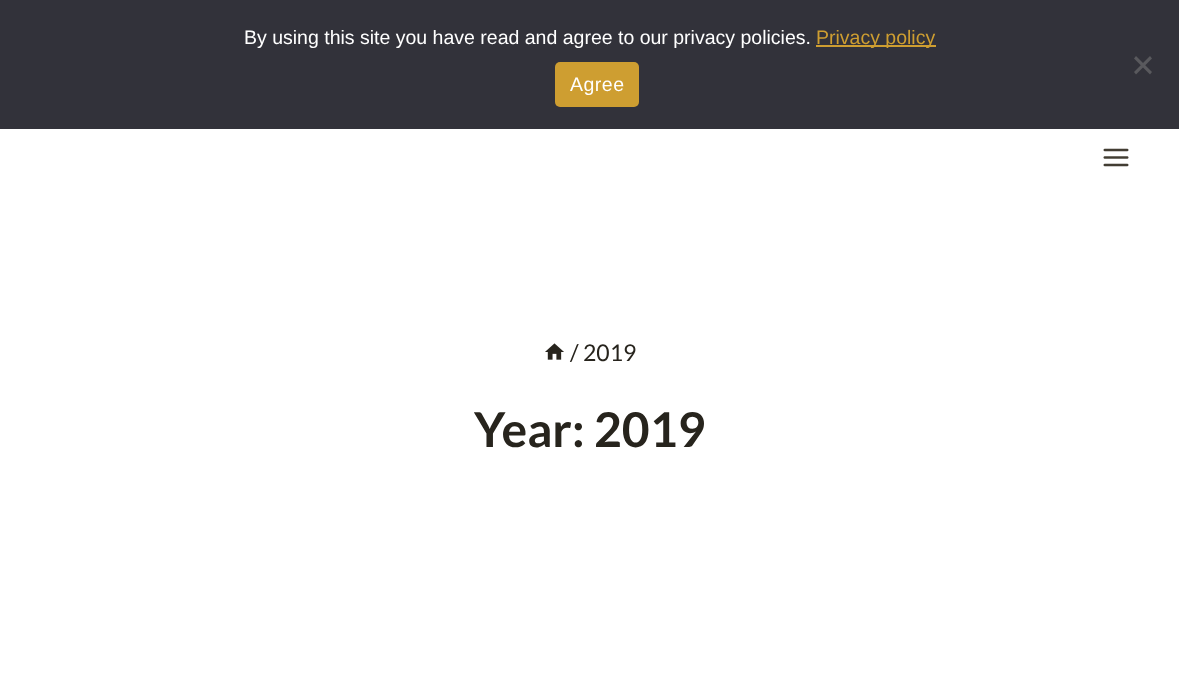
<svg xmlns="http://www.w3.org/2000/svg" width="1179" height="674" viewBox="0 0 1179 674">
  <rect width="100%" height="100%" fill="#ffffff"/>
  <rect x="0" y="0" width="1179" height="129" fill="#32323a"/>
  <text x="244" y="44" font-family="Liberation Sans" font-size="19.5" fill="#ffffff">By using this site you have read and agree to our privacy policies.</text>
  <rect x="816" y="45" width="120" height="2" fill="#ce9e31"/>
  <text x="816" y="44" font-family="Liberation Sans" font-size="19.5" fill="#ce9e31">Privacy policy</text>
  <path d="M1150 56L1152 58.5L1136 74.5L1134 72Z" fill="#59595d"/>
  <path d="M1134 58.5L1136 56L1152 72L1150 74.5Z" fill="#59595d"/>
  <rect x="555" y="62" width="84" height="45" rx="5" fill="#ce9e31"/>
  <text x="570" y="91" font-family="Liberation Sans" font-size="19.5" letter-spacing="0.5" fill="#ffffff">Agree</text>
  <image x="1103" y="148" width="26" height="19" href="img1.png"/>
  <image x="545" y="343" width="19" height="17" href="img2.png"/>
  <text x="570" y="361" font-family="Lato" font-size="23" fill="#27241d">/ 2019</text>
  <text x="474" y="447" font-family="Lato" font-size="48" font-weight="bold" fill="#27241d">Year: 2019</text>
</svg>
